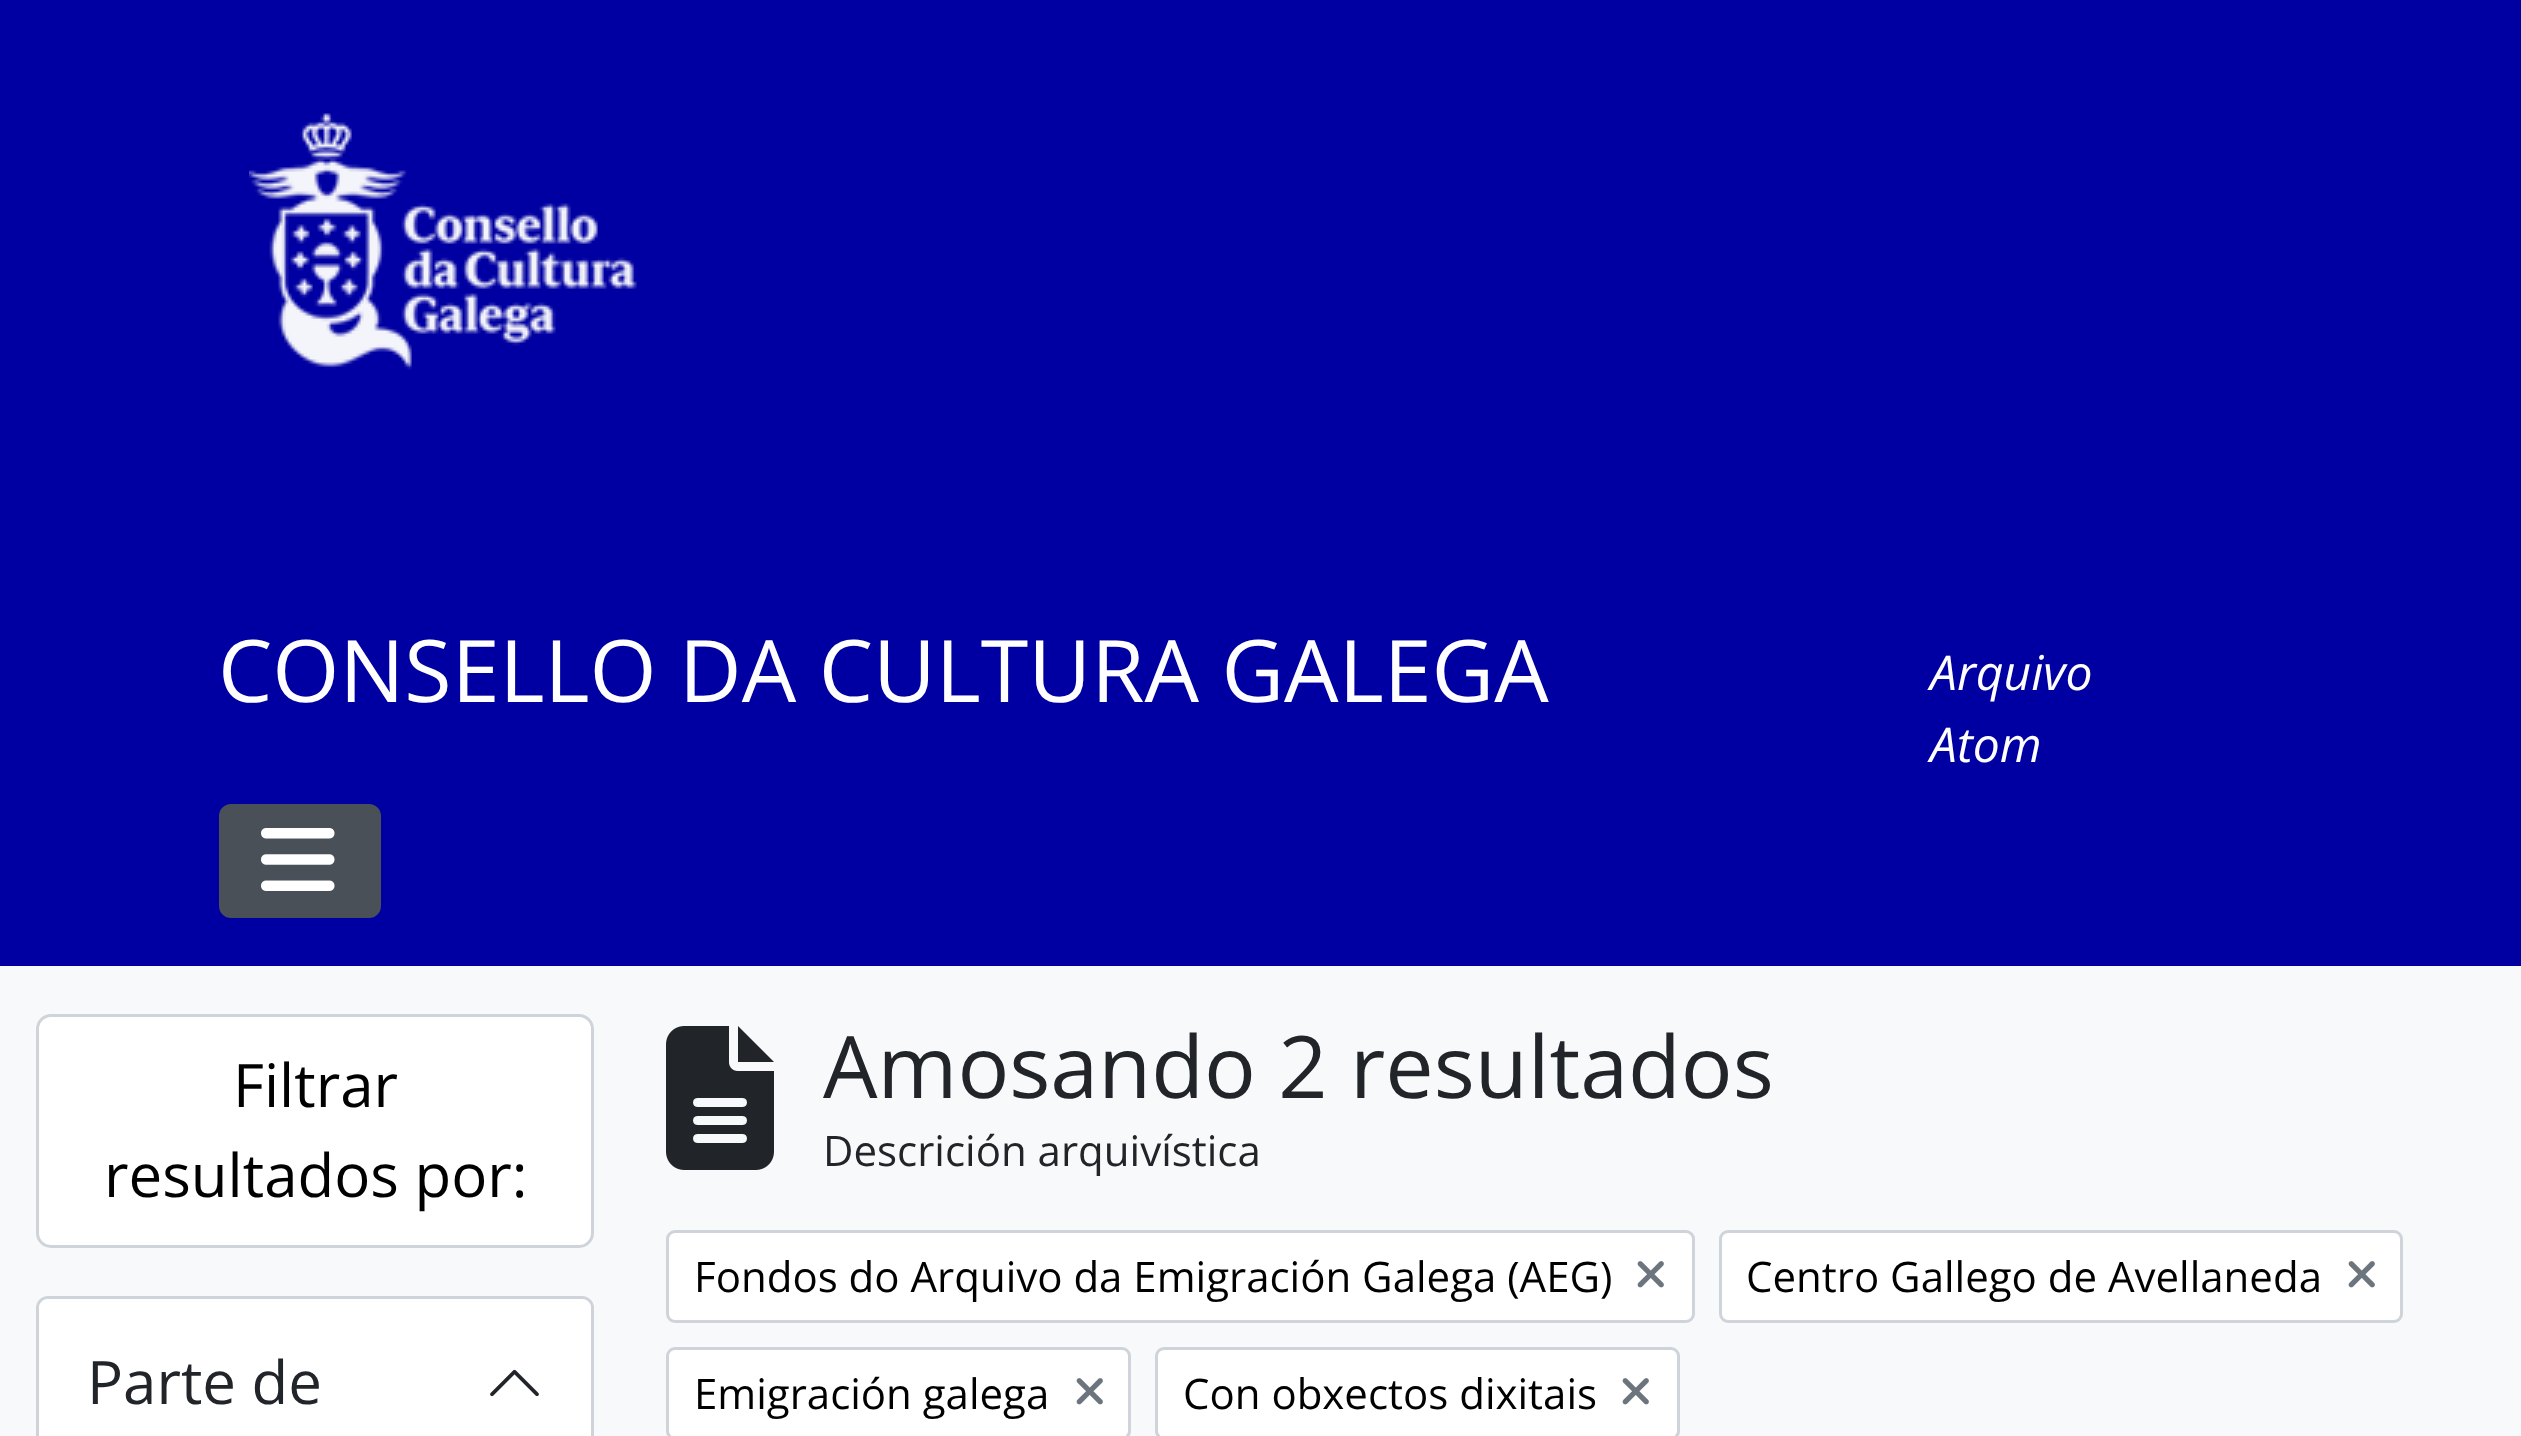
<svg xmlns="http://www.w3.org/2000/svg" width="2521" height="1436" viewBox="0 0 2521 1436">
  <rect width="100%" height="100%" fill="#f8f9fa"/>
  <rect x="0" y="0" width="2521" height="966" fill="#0000a2"/>
  <image x="249" y="113" width="388" height="257" href="img1.png"/>
  <text x="218" y="702" font-family="Open Sans" font-size="86.25" fill="#ffffff">CONSELLO DA CULTURA GALEGA</text>
  <text x="1930" y="690" font-family="Open Sans" font-size="48" font-style="italic" fill="#ffffff">Arquivo</text>
  <text x="1930" y="762" font-family="Open Sans" font-size="48" font-style="italic" fill="#ffffff">Atom</text>
  <rect x="220.5" y="805.5" width="159" height="111" rx="10.5" fill="#495057" stroke="#495057" stroke-width="3"/>
  <image x="261" y="828" width="74" height="63" href="img2.png"/>
  <rect x="37.5" y="1015.5" width="555" height="231" rx="13.5" fill="#ffffff" stroke="#ced4da" stroke-width="3"/>
  <text x="233" y="1107" font-family="Open Sans" font-size="60" fill="#000000">Filtrar</text>
  <text x="104" y="1197" font-family="Open Sans" font-size="60" fill="#000000">resultados por:</text>
  <rect x="37.5" y="1297.5" width="555" height="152" rx="10.5" fill="none" stroke="#ced4da" stroke-width="3"/>
  <path d="M48 1299H582C587 1299 591 1303 591 1308V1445H39V1308C39 1303 43 1299 48 1299Z" fill="#ffffff"/>
  <text x="87" y="1404" font-family="Open Sans" font-size="60" fill="#212529">Parte de</text>
  <image x="490" y="1369" width="49" height="28" href="img3.png"/>
  <image x="666" y="1026" width="108" height="144" href="img4.png"/>
  <text x="823" y="1098" font-family="Open Sans" font-size="86.25" fill="#212529">Amosando 2 resultados</text>
  <text x="823" y="1166" font-family="Open Sans" font-size="42" fill="#212529">Descrición arquivística</text>
  <rect x="667.5" y="1231.5" width="1026" height="90" rx="7.5" fill="#ffffff" stroke="#ced4da" stroke-width="3"/>
  <text x="694" y="1292" font-family="Open Sans" font-size="42" fill="#000000">Fondos do Arquivo da Emigración Galega (AEG)</text>
  <image x="1637" y="1261" width="27" height="27" href="img5.png"/>
  <rect x="1720.5" y="1231.5" width="681" height="90" rx="7.5" fill="#ffffff" stroke="#ced4da" stroke-width="3"/>
  <text x="1746" y="1292" font-family="Open Sans" font-size="42" fill="#000000">Centro Gallego de Avellaneda</text>
  <image x="2348" y="1261" width="27" height="27" href="img5.png"/>
  <rect x="667.5" y="1348.5" width="462" height="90" rx="7.5" fill="#ffffff" stroke="#ced4da" stroke-width="3"/>
  <text x="694" y="1409" font-family="Open Sans" font-size="42" fill="#000000">Emigración galega</text>
  <image x="1076" y="1378" width="27" height="27" href="img5.png"/>
  <rect x="1156.5" y="1348.5" width="522" height="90" rx="7.5" fill="#ffffff" stroke="#ced4da" stroke-width="3"/>
  <text x="1183" y="1409" font-family="Open Sans" font-size="42" fill="#000000">Con obxectos dixitais</text>
  <image x="1622" y="1378" width="27" height="27" href="img5.png"/>
</svg>
